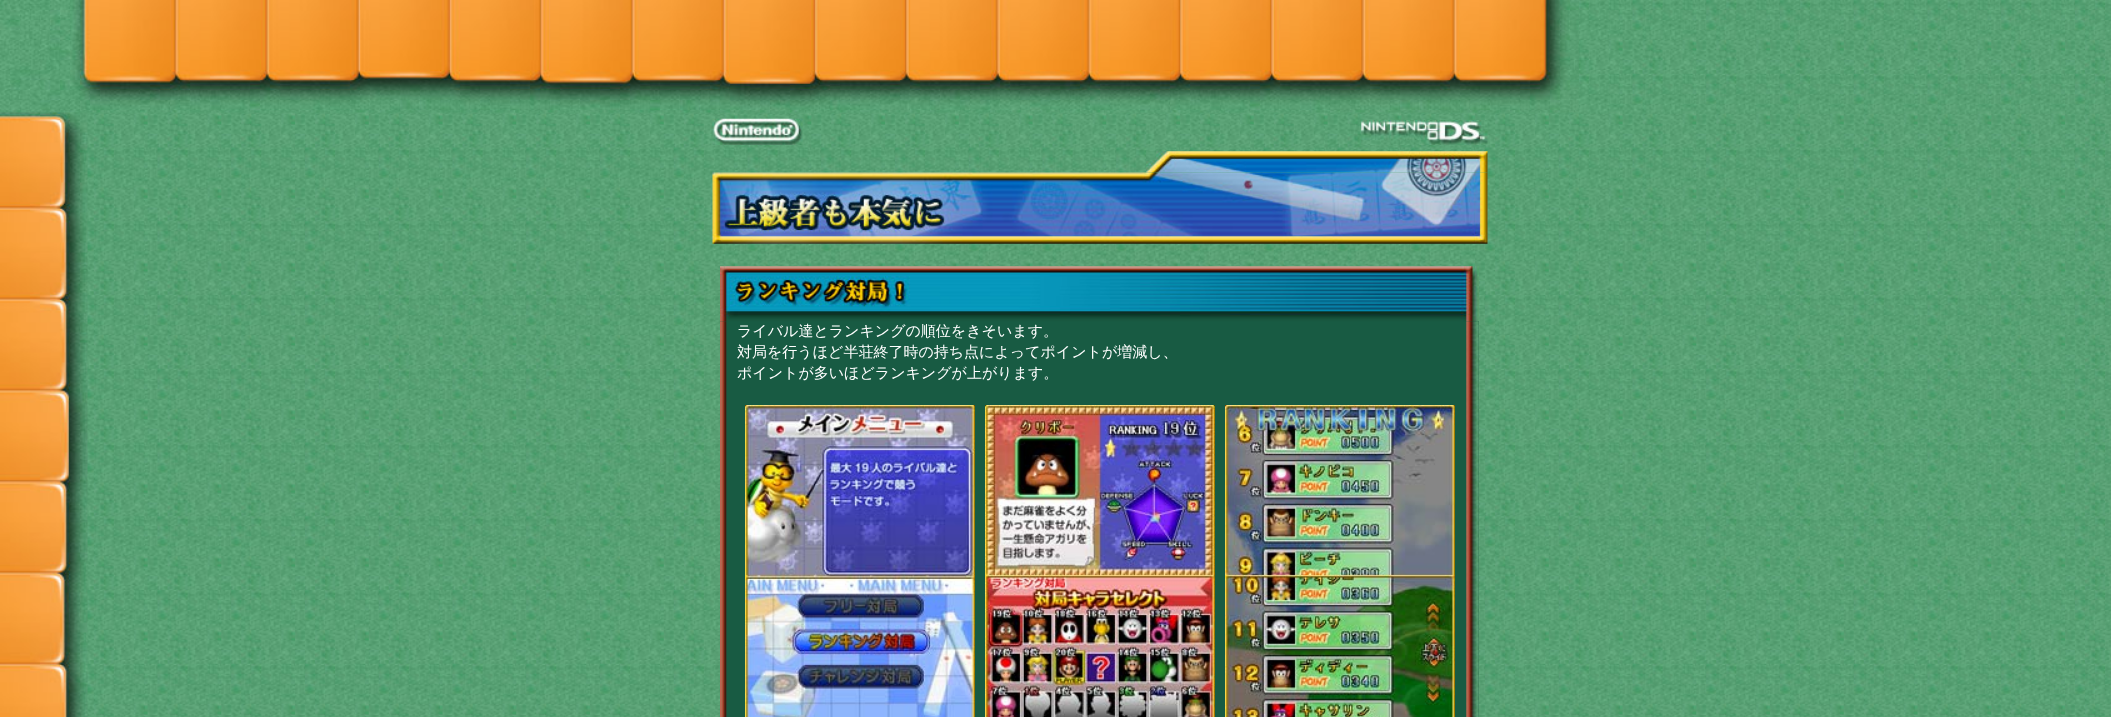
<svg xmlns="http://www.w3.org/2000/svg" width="2111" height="717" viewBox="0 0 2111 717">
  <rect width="100%" height="100%" fill="#ffffff"/>
  <image x="0" y="0" width="2111" height="717" href="img1.png"/>
  <image x="0" y="0" width="1579" height="113" href="img2.png"/>
  <image x="0" y="112" width="88" height="605" href="img3.png"/>
  <image x="712" y="118" width="91" height="27" href="img4.png"/>
  <image x="1361" y="120" width="127" height="25" href="img5.png"/>
  <image x="1146" y="151" width="342" height="22" href="img6.png"/>
  <image x="712" y="172" width="776" height="72" href="img7.png"/>
  <rect x="720" y="321" width="759" height="396" fill="#185b43"/>
  <image x="720" y="321" width="7" height="396" href="img9.png"/>
  <image x="1466" y="321" width="13" height="396" href="img13.png"/>
  <image x="720" y="266" width="759" height="56" href="img8.png"/>
  <text x="737" y="336" font-family="WenQuanYi Zen Hei" font-size="15" font-weight="500" fill="#ffffff">ライバル達とランキングの順位をきそいます。</text>
  <text x="737" y="357" font-family="WenQuanYi Zen Hei" font-size="15" font-weight="500" fill="#ffffff">対局を行うほど半荘終了時の持ち点によってポイントが増減し、</text>
  <text x="737" y="378" font-family="WenQuanYi Zen Hei" font-size="15" font-weight="500" fill="#ffffff">ポイントが多いほどランキングが上がります。</text>
  <image x="745" y="405" width="230" height="312" href="img10.png"/>
  <image x="985" y="405" width="230" height="312" href="img11.png"/>
  <image x="1225" y="405" width="230" height="312" href="img12.png"/>
</svg>
